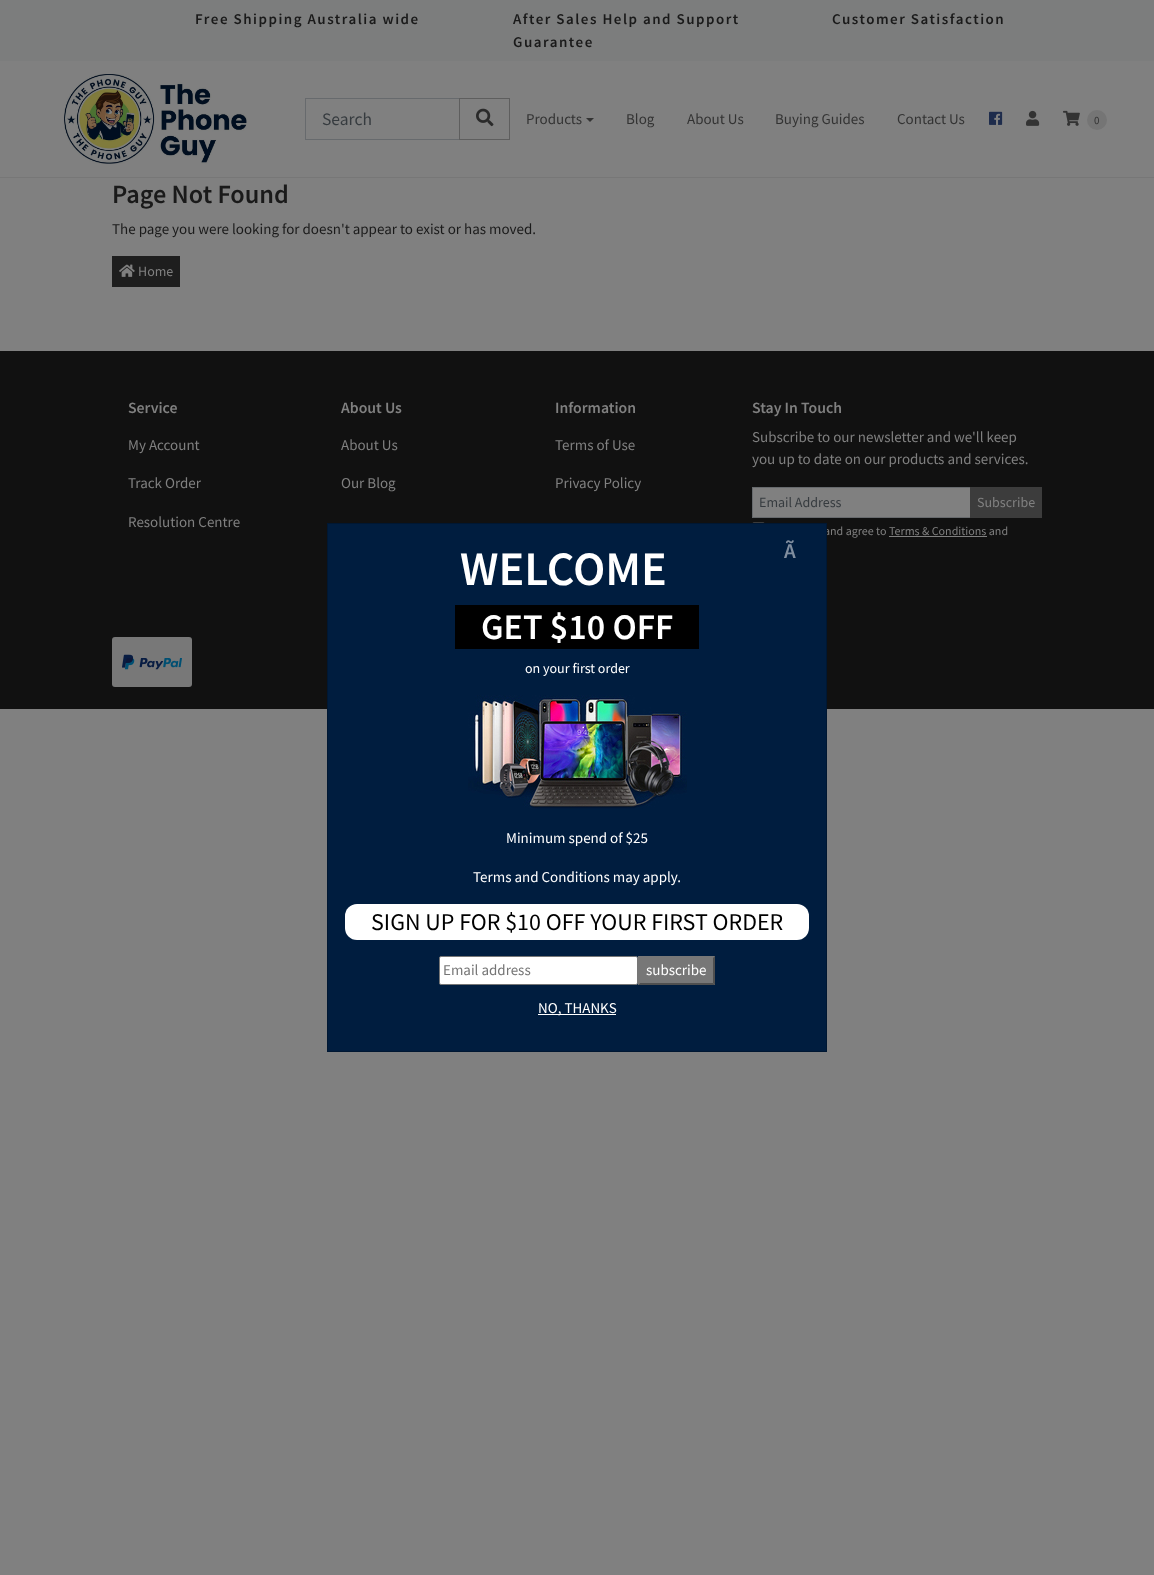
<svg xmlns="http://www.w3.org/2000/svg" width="1154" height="1575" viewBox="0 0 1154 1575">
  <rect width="100%" height="100%" fill="#808080"/>
  <rect x="0" y="0" width="1154" height="61" fill="#7c7d7d"/>
  <text x="195" y="24" font-family="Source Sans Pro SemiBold" font-size="15" font-weight="600" letter-spacing="1.5" fill="#1a1a1a">Free Shipping Australia wide</text>
  <text x="513" y="24" font-family="Source Sans Pro SemiBold" font-size="15" font-weight="600" letter-spacing="1.5" fill="#1a1a1a">After Sales Help and Support</text>
  <text x="832" y="24" font-family="Source Sans Pro SemiBold" font-size="15" font-weight="600" letter-spacing="1.5" fill="#1a1a1a">Customer Satisfaction</text>
  <text x="513" y="47" font-family="Source Sans Pro SemiBold" font-size="15" font-weight="600" letter-spacing="1.5" fill="#1a1a1a">Guarantee</text>
  <rect x="0" y="177" width="1154" height="1" fill="#777777"/>
  <image x="64" y="74" width="183" height="90" href="img1.png"/>
  <rect x="305.5" y="98.5" width="154" height="41" fill="none" stroke="#676a6d"/>
  <text x="322" y="125" font-family="Source Sans Pro" font-size="17.5" fill="#363b3f">Search</text>
  <rect x="459.5" y="98.5" width="50" height="41" fill="none" stroke="#5e5e5e"/>
  <image x="476" y="108" width="18" height="19" href="img2.png"/>
  <text x="526" y="124" font-family="Source Sans Pro" font-size="15" fill="#333333">Products</text>
  <path d="M586 118H594L590 122Z" fill="#333333"/>
  <text x="626" y="124" font-family="Source Sans Pro" font-size="15" fill="#333333">Blog</text>
  <text x="687" y="124" font-family="Source Sans Pro" font-size="15" fill="#333333">About Us</text>
  <text x="775" y="124" font-family="Source Sans Pro" font-size="15" fill="#333333">Buying Guides</text>
  <text x="897" y="124" font-family="Source Sans Pro" font-size="15" fill="#333333">Contact Us</text>
  <image x="989" y="111" width="14" height="14" href="img3.png"/>
  <image x="1026" y="110" width="14" height="16" href="img4.png"/>
  <image x="1063" y="110" width="17" height="16" href="img5.png"/>
  <circle cx="1097" cy="120" r="10" fill="#757575"/>
  <text x="1094" y="124" font-family="Source Sans Pro" font-size="11" fill="#333333">0</text>
  <text x="112" y="203" font-family="Source Sans Pro SemiBold" font-size="26.25" font-weight="600" fill="#1a1a1a">Page Not Found</text>
  <text x="112" y="234" font-family="Source Sans Pro" font-size="15" fill="#1a1a1a">The page you were looking for doesn't appear to exist or has moved.</text>
  <rect x="112" y="256" width="68" height="31" fill="#1e1e1e"/>
  <image x="119" y="264" width="16" height="13" href="img6.png"/>
  <text x="138" y="276" font-family="Source Sans Pro" font-size="14" fill="#808080">Home</text>
  <rect x="0" y="351" width="1154" height="358" fill="#111111"/>
  <text x="128" y="413" font-family="Source Sans Pro SemiBold" font-size="15.75" font-weight="600" fill="#808080">Service</text>
  <text x="128" y="450" font-family="Source Sans Pro" font-size="15" fill="#808080">My Account</text>
  <text x="128" y="488" font-family="Source Sans Pro" font-size="15" fill="#808080">Track Order</text>
  <text x="128" y="527" font-family="Source Sans Pro" font-size="15" fill="#808080">Resolution Centre</text>
  <text x="341" y="413" font-family="Source Sans Pro SemiBold" font-size="15.75" font-weight="600" fill="#808080">About Us</text>
  <text x="341" y="450" font-family="Source Sans Pro" font-size="15" fill="#808080">About Us</text>
  <text x="341" y="488" font-family="Source Sans Pro" font-size="15" fill="#808080">Our Blog</text>
  <text x="555" y="413" font-family="Source Sans Pro SemiBold" font-size="15.75" font-weight="600" fill="#808080">Information</text>
  <text x="555" y="450" font-family="Source Sans Pro" font-size="15" fill="#808080">Terms of Use</text>
  <text x="555" y="488" font-family="Source Sans Pro" font-size="15" fill="#808080">Privacy Policy</text>
  <text x="752" y="413" font-family="Source Sans Pro SemiBold" font-size="15.75" font-weight="600" fill="#808080">Stay In Touch</text>
  <text x="752" y="442" font-family="Source Sans Pro" font-size="15" fill="#808080">Subscribe to our newsletter and we'll keep</text>
  <text x="752" y="464" font-family="Source Sans Pro" font-size="15" fill="#808080">you up to date on our products and services.</text>
  <rect x="752.5" y="487.5" width="218" height="30" fill="#808080" stroke="#676a6d"/>
  <text x="759" y="507" font-family="Source Sans Pro" font-size="14" fill="#363b3f">Email Address</text>
  <rect x="970" y="487" width="72" height="31" fill="#3c3c3c"/>
  <text x="977" y="507" font-family="Source Sans Pro" font-size="14" fill="#808080">Subscribe</text>
  <rect x="752.5" y="522.5" width="12" height="12" rx="1.5" fill="none" stroke="#3b3b3b"/>
  <text x="824" y="535" font-family="Source Sans Pro" font-size="12" fill="#808080">and agree to Terms &amp; Conditions and</text>
  <rect x="889" y="536" width="98" height="1" fill="#808080"/>
  <rect x="112" y="637" width="80" height="50" rx="3" fill="#787878"/>
  <image x="122" y="654" width="60" height="16" href="img7.png"/>
  <rect x="327.5" y="523.5" width="499" height="528" fill="#001d3f" stroke="#001732"/>
  <text x="784" y="558" font-family="Source Sans Pro SemiBold" font-size="21" font-weight="600" fill="#808e9f">Ã</text>
  <text x="460" y="585" font-family="Source Sans Pro SemiBold" font-size="48" font-weight="600" fill="#ffffff">WELCOME</text>
  <rect x="455" y="605" width="244" height="44" fill="#000000"/>
  <text x="481" y="639" font-family="Source Sans Pro SemiBold" font-size="36" font-weight="600" fill="#ffffff">GET $10 OFF</text>
  <text x="525" y="673" font-family="Source Sans Pro" font-size="14" fill="#ffffff">on your first order</text>
  <image x="468" y="695" width="219" height="114" href="img8.png"/>
  <text x="506" y="843" font-family="Source Sans Pro" font-size="15" fill="#ffffff">Minimum spend of $25</text>
  <text x="473" y="882" font-family="Source Sans Pro" font-size="15" fill="#ffffff">Terms and Conditions may apply.</text>
  <rect x="345" y="904" width="464" height="36" rx="12" fill="#ffffff"/>
  <text x="371" y="930" font-family="Source Sans Pro" font-size="24" fill="#000000">SIGN UP FOR $10 OFF YOUR FIRST ORDER</text>
  <rect x="439.5" y="956.5" width="198" height="28" rx="1.5" fill="#ffffff" stroke="#767676"/>
  <text x="443" y="975" font-family="Source Sans Pro" font-size="15" fill="#757575">Email address</text>
  <rect x="638" y="956" width="77" height="29" fill="#777777"/>
  <path d="M715 956V985L713 983V958Z" fill="#4f4f4f"/>
  <path d="M715 985H638L640 983H713Z" fill="#4f4f4f"/>
  <path d="M638 985V956L640 958V983Z" fill="#777777"/>
  <text x="646" y="975" font-family="Source Sans Pro" font-size="15" fill="#ffffff">subscribe</text>
  <rect x="538" y="1014" width="78" height="1" fill="#ffffff"/>
  <text x="538" y="1013" font-family="Source Sans Pro" font-size="15" fill="#ffffff">NO, THANKS</text>
</svg>
